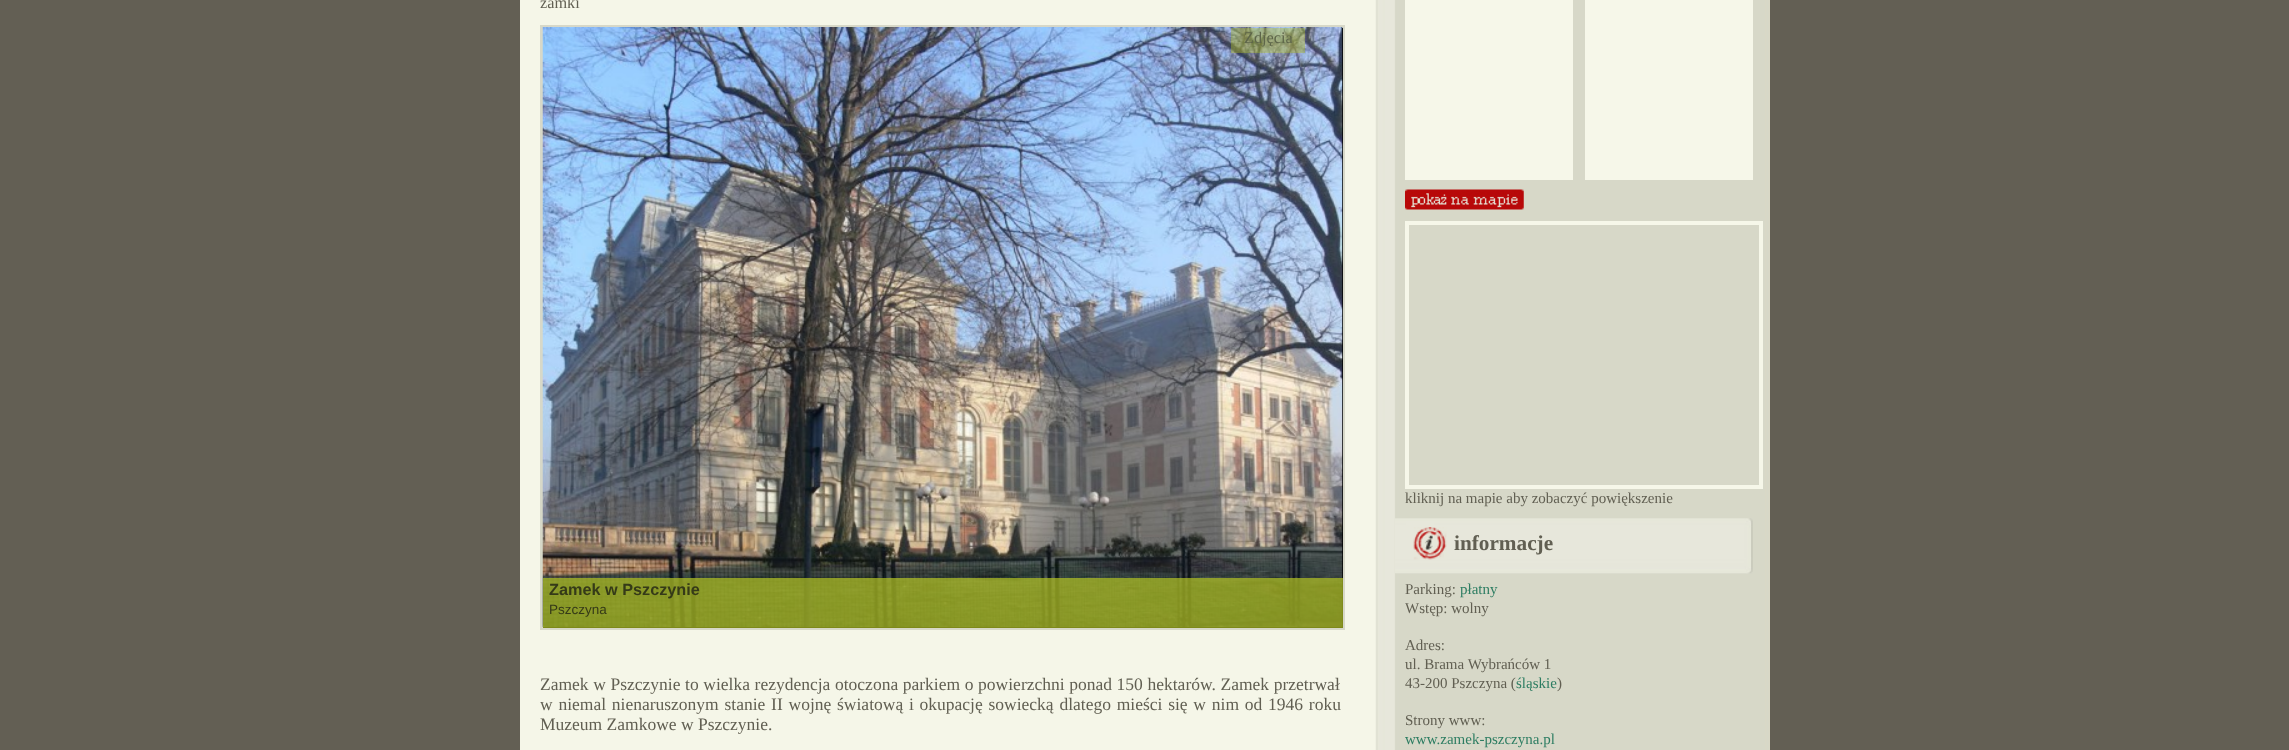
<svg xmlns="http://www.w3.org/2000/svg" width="2289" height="750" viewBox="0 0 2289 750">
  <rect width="100%" height="100%" fill="#635f54"/>
  <rect x="520" y="0" width="855" height="750" fill="#f5f6e8"/>
  <image x="1375" y="0" width="395" height="750" href="img1.png"/>
  <text x="540" y="8" font-family="Liberation Serif" font-size="16.25" fill="#615f52">zamki</text>
  <rect x="541.5" y="26.5" width="802" height="602" fill="none" stroke="#d7d8c8" stroke-width="3"/>
  <rect x="543" y="28" width="800" height="600" fill="#000000"/>
  <image x="542" y="27" width="801" height="600" href="img2.png"/>
  <rect x="1231" y="28" width="74" height="25" fill="#b3c324" fill-opacity="0.4"/>
  <text x="1244" y="43" font-family="Liberation Serif" font-size="16.25" fill="#5e664a">Zdjęcia</text>
  <rect x="543" y="578" width="800" height="50" fill="#b3c324" fill-opacity="0.7"/>
  <text x="549" y="595" font-family="Liberation Sans" font-size="16.25" font-weight="bold" fill="#353a18">Zamek w Pszczynie</text>
  <text x="549" y="614" font-family="Liberation Sans" font-size="13.5" fill="#353a18">Pszczyna</text>
  <text x="540" y="690" word-spacing="0.25" font-family="Liberation Serif" font-size="17.5" fill="#615f52">Zamek w Pszczynie to wielka rezydencja otoczona parkiem o powierzchni ponad 150 hektarów. Zamek przetrwał</text>
  <text x="540" y="710" word-spacing="1.4" font-family="Liberation Serif" font-size="17.5" fill="#615f52">w niemal nienaruszonym stanie II wojnę światową i okupację sowiecką dlatego mieści się w nim od 1946 roku</text>
  <text x="540" y="730" font-family="Liberation Serif" font-size="17.5" fill="#615f52">Muzeum Zamkowe w Pszczynie.</text>
  <rect x="1405" y="0" width="168" height="180" fill="#f6f7e9"/>
  <rect x="1585" y="0" width="168" height="180" fill="#f6f7e9"/>
  <image x="1405" y="189" width="119" height="21" href="img3.png"/>
  <rect x="1407" y="223" width="354" height="264" fill="none" stroke="#f6f7e9" stroke-width="4"/>
  <text x="1405" y="503" font-family="Liberation Serif" font-size="15" fill="#615f52">kliknij na mapie aby zobaczyć powiększenie</text>
  <image x="1395" y="518" width="358" height="56" href="img4.png"/>
  <image x="1413" y="527" width="34" height="33" href="img5.png"/>
  <text x="1454" y="550" font-family="Liberation Serif" font-size="21.25" font-weight="bold" fill="#615f52">informacje</text>
  <text x="1405" y="594" font-family="Liberation Serif" font-size="15" fill="#615f52">Parking:</text>
  <text x="1460" y="594" font-family="Liberation Serif" font-size="15" fill="#2d7d62">płatny</text>
  <text x="1405" y="613" font-family="Liberation Serif" font-size="15" fill="#615f52">Wstęp: wolny</text>
  <text x="1405" y="650" font-family="Liberation Serif" font-size="15" fill="#615f52">Adres:</text>
  <text x="1405" y="669" font-family="Liberation Serif" font-size="15" fill="#615f52">ul. Brama Wybrańców 1</text>
  <text x="1405" y="688" font-family="Liberation Serif" font-size="15" fill="#615f52">43-200 Pszczyna (</text>
  <text x="1516" y="688" font-family="Liberation Serif" font-size="15" fill="#2d7d62">śląskie</text>
  <text x="1557" y="688" font-family="Liberation Serif" font-size="15" fill="#615f52">)</text>
  <text x="1405" y="725" font-family="Liberation Serif" font-size="15" fill="#615f52">Strony www:</text>
  <text x="1405" y="744" font-family="Liberation Serif" font-size="15" fill="#2d7d62">www.zamek-pszczyna.pl</text>
</svg>
